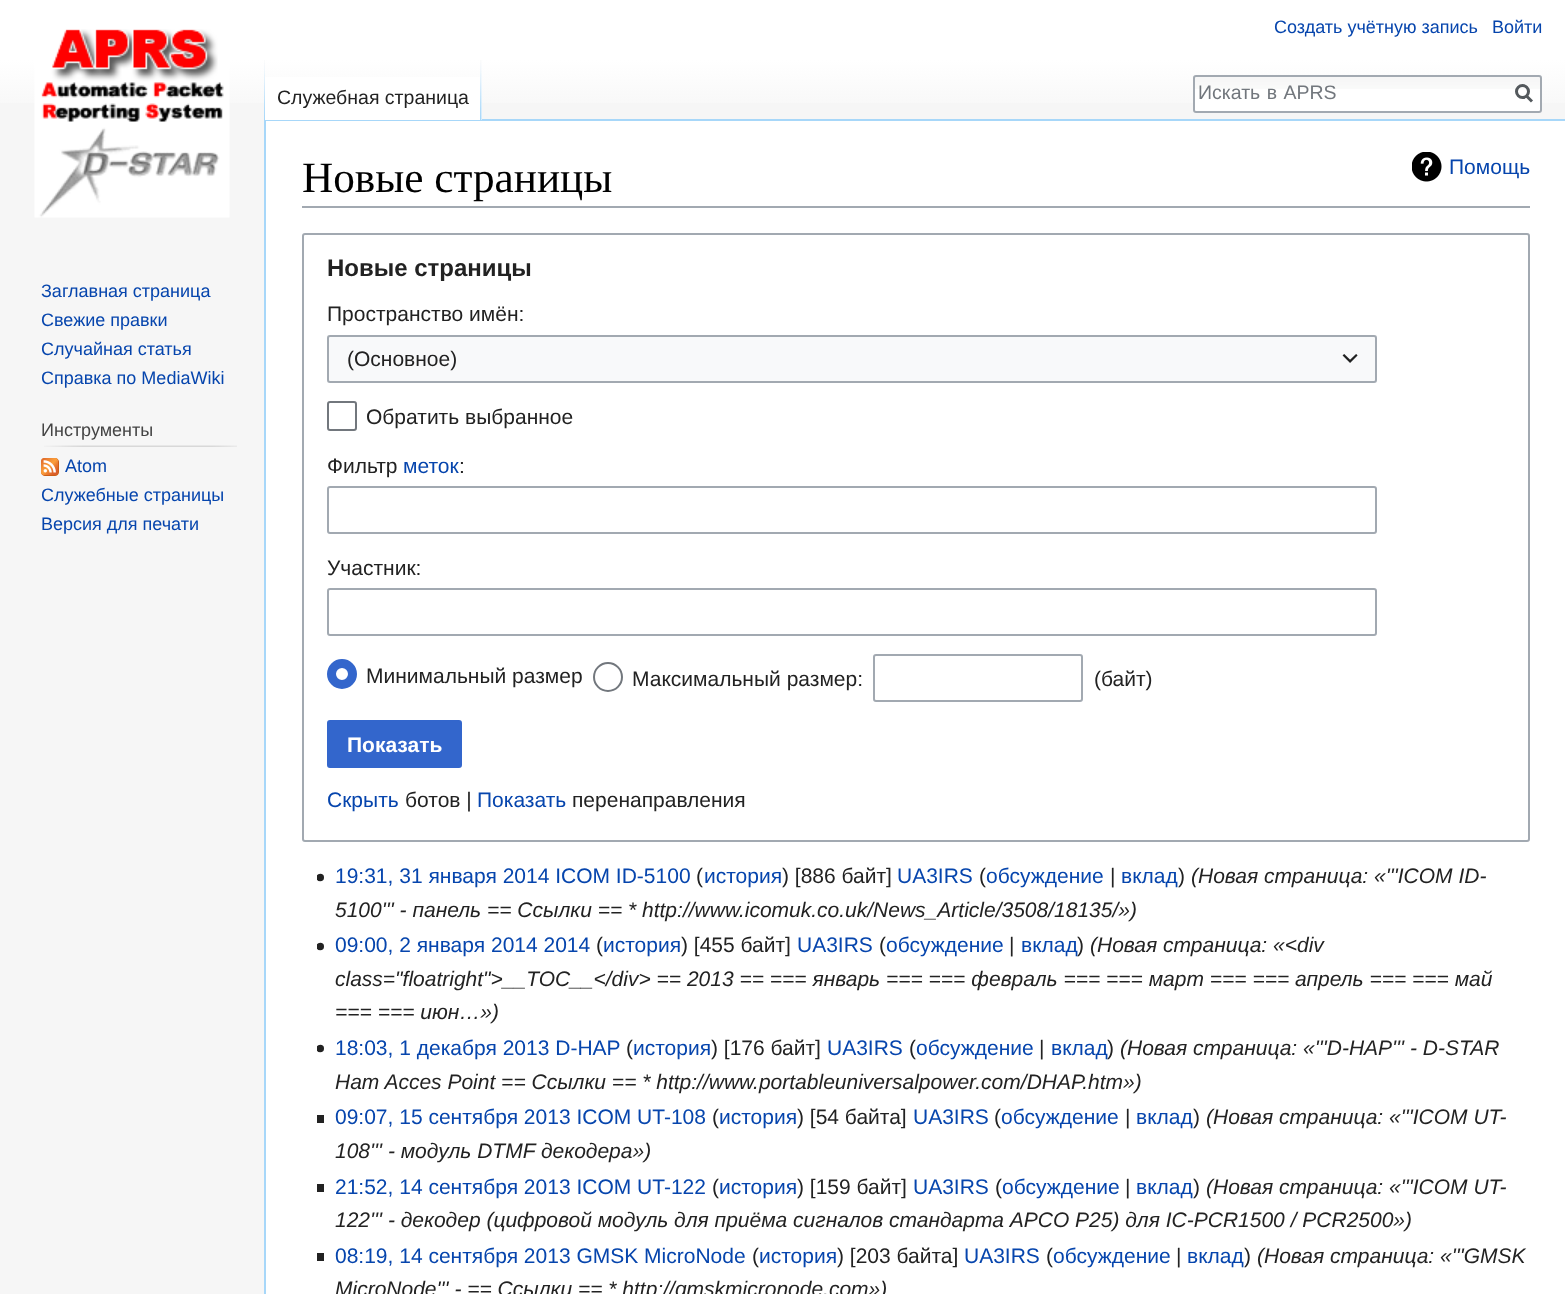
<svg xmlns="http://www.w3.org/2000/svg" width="1565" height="1294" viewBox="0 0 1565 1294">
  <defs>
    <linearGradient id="g1" gradientUnits="userSpaceOnUse" x1="783" y1="0" x2="783" y2="120"><stop offset="0.5" stop-color="#ffffff"/><stop offset="1" stop-color="#f6f6f6"/></linearGradient>
  </defs>
  <rect width="100%" height="100%" fill="#f6f6f6"/>
  <rect x="0" y="0" width="1565" height="103" fill="url(#g1)"/>
  <text x="1274" y="33" font-family="Liberation Sans" font-size="18" fill="#0645ad">Создать учётную запись</text>
  <text x="1492" y="33" font-family="Liberation Sans" font-size="18" fill="#0645ad">Войти</text>
  <image x="264" y="60" width="1" height="59" href="img1.png"/>
  <rect x="264" y="119" width="1301" height="2" fill="#a7d7f9"/>
  <rect x="264" y="119" width="2" height="1175" fill="#a7d7f9"/>
  <rect x="265" y="77" width="217" height="43" fill="#ffffff"/>
  <image x="480" y="60" width="2" height="60" href="img2.png"/>
  <text x="277" y="104" font-family="Liberation Sans" font-size="19.5" fill="#222222">Служебная страница</text>
  <rect x="1193" y="75" width="349" height="38" rx="3" fill="#ffffff"/>
  <image x="1193" y="76" width="349" height="13" href="img3.png"/>
  <rect x="1194" y="76" width="347" height="36" rx="2" fill="none" stroke="#a2a9b1" stroke-width="2"/>
  <text x="1198" y="99" word-spacing="1" font-family="Liberation Sans" font-size="19.5" fill="#72777d">Искать в APRS</text>
  <path d="M1532 101.5L1526 95.5" fill="none" stroke="#54595d" stroke-width="3"/>
  <circle cx="1522.5" cy="91.5" r="6" fill="none" stroke="#54595d" stroke-width="3"/>
  <image x="34" y="29" width="196" height="189" href="img4.png"/>
  <text x="41" y="297" font-family="Liberation Sans" font-size="18" fill="#0645ad">Заглавная страница</text>
  <text x="41" y="326" font-family="Liberation Sans" font-size="18" fill="#0645ad">Свежие правки</text>
  <text x="41" y="355" font-family="Liberation Sans" font-size="18" fill="#0645ad">Случайная статья</text>
  <text x="41" y="384" font-family="Liberation Sans" font-size="18" fill="#0645ad">Справка по MediaWiki</text>
  <text x="41" y="436" font-family="Liberation Sans" font-size="18" fill="#444444">Инструменты</text>
  <image x="44" y="445" width="193" height="2" href="img5.png"/>
  <image x="41" y="458" width="18" height="18" href="img6.png"/>
  <text x="65" y="472" font-family="Liberation Sans" font-size="18" fill="#0645ad">Atom</text>
  <text x="41" y="501" font-family="Liberation Sans" font-size="18" fill="#0645ad">Служебные страницы</text>
  <text x="41" y="530" font-family="Liberation Sans" font-size="18" fill="#0645ad">Версия для печати</text>
  <rect x="266" y="121" width="1299" height="1173" fill="#ffffff"/>
  <rect x="302" y="206" width="1228" height="2" fill="#a2a9b1"/>
  <text x="302" y="192" font-family="Liberation Serif" font-size="43.25" fill="#000000">Новые страницы</text>
  <image x="1412" y="152" width="30" height="30" href="img7.png"/>
  <text x="1449" y="174" font-family="Liberation Sans" font-size="21" fill="#0645ad">Помощь</text>
  <rect x="303" y="234" width="1226" height="607" rx="2" fill="none" stroke="#a2a9b1" stroke-width="2"/>
  <text x="327" y="276" font-family="Liberation Sans" font-size="24" font-weight="bold" fill="#222222">Новые страницы</text>
  <text x="327" y="321" font-family="Liberation Sans" font-size="21" fill="#222222">Пространство имён:</text>
  <rect x="327" y="335" width="1050" height="48" fill="#f8f9fa"/>
  <rect x="328" y="336" width="1048" height="46" rx="2" fill="none" stroke="#a2a9b1" stroke-width="2"/>
  <text x="347" y="366" font-family="Liberation Sans" font-size="21" fill="#222222">(Основное)</text>
  <image x="1342" y="354" width="16" height="9" href="img8.png"/>
  <rect x="328" y="402" width="28" height="28" rx="2" fill="none" stroke="#72777d" stroke-width="2"/>
  <text x="366" y="424" font-family="Liberation Sans" font-size="21" fill="#222222">Обратить выбранное</text>
  <text x="327" y="473" font-family="Liberation Sans" font-size="21" fill="#222222">Фильтр</text>
  <text x="403" y="473" font-family="Liberation Sans" font-size="21" fill="#0645ad">меток</text>
  <text x="459" y="473" font-family="Liberation Sans" font-size="21" fill="#222222">:</text>
  <rect x="328" y="487" width="1048" height="46" rx="2" fill="none" stroke="#a2a9b1" stroke-width="2"/>
  <text x="327" y="575" font-family="Liberation Sans" font-size="21" fill="#222222">Участник:</text>
  <rect x="328" y="589" width="1048" height="46" rx="2" fill="none" stroke="#a2a9b1" stroke-width="2"/>
  <circle cx="342" cy="674" r="10.5" fill="none" stroke="#3366cc" stroke-width="9"/>
  <text x="366" y="683" font-family="Liberation Sans" font-size="21" fill="#222222">Минимальный размер</text>
  <circle cx="608" cy="677" r="14" fill="none" stroke="#72777d" stroke-width="2"/>
  <text x="632" y="686" font-family="Liberation Sans" font-size="21" fill="#222222">Максимальный размер:</text>
  <rect x="874" y="655" width="208" height="46" rx="2" fill="none" stroke="#a2a9b1" stroke-width="2"/>
  <text x="1094" y="686" font-family="Liberation Sans" font-size="21" fill="#222222">(байт)</text>
  <rect x="328" y="721" width="133" height="46" rx="2" fill="#3366cc" stroke="#3366cc" stroke-width="2"/>
  <text x="347" y="752" font-family="Liberation Sans" font-size="21" font-weight="bold" fill="#ffffff">Показать</text>
  <text x="327" y="807" font-family="Liberation Sans" font-size="21" fill="#0645ad">Скрыть</text>
  <text x="405" y="807" font-family="Liberation Sans" font-size="21" fill="#222222">ботов |</text>
  <text x="477" y="807" font-family="Liberation Sans" font-size="21" fill="#0645ad">Показать</text>
  <text x="572" y="807" font-family="Liberation Sans" font-size="21" fill="#222222">перенаправления</text>
  <image x="317" y="873" width="7" height="9" href="img9.png"/>
  <text x="335" y="883" font-family="Liberation Sans" font-size="21" fill="#0645ad">19:31, 31 января 2014 ICOM ID-5100</text>
  <text x="696" y="883" font-family="Liberation Sans" font-size="21" fill="#222222">(</text>
  <text x="704" y="883" font-family="Liberation Sans" font-size="21" fill="#0645ad">история</text>
  <text x="782" y="883" font-family="Liberation Sans" font-size="21" fill="#222222">) [886 байт]</text>
  <text x="897" y="883" font-family="Liberation Sans" font-size="21" fill="#0645ad">UA3IRS</text>
  <text x="979" y="883" font-family="Liberation Sans" font-size="21" fill="#222222">(</text>
  <text x="986" y="883" font-family="Liberation Sans" font-size="21" fill="#0645ad">обсуждение</text>
  <text x="1110" y="883" font-family="Liberation Sans" font-size="21" fill="#222222">|</text>
  <text x="1121" y="883" font-family="Liberation Sans" font-size="21" fill="#0645ad">вклад</text>
  <text x="1178" y="883" font-family="Liberation Sans" font-size="21" fill="#222222">)</text>
  <text x="1191" y="883" font-family="Liberation Sans" font-size="21" font-style="italic" fill="#222222">(Новая страница: «'''ICOM ID-</text>
  <text x="335" y="917" font-family="Liberation Sans" font-size="21" font-style="italic" fill="#222222">5100''' - панель == Ссылки == * http://www.icomuk.co.uk/News_Article/3508/18135/»)</text>
  <image x="317" y="942" width="7" height="9" href="img9.png"/>
  <text x="335" y="952" font-family="Liberation Sans" font-size="21" fill="#0645ad">09:00, 2 января 2014 2014</text>
  <text x="596" y="952" font-family="Liberation Sans" font-size="21" fill="#222222">(</text>
  <text x="603" y="952" font-family="Liberation Sans" font-size="21" fill="#0645ad">история</text>
  <text x="681" y="952" font-family="Liberation Sans" font-size="21" fill="#222222">) [455 байт]</text>
  <text x="797" y="952" font-family="Liberation Sans" font-size="21" fill="#0645ad">UA3IRS</text>
  <text x="879" y="952" font-family="Liberation Sans" font-size="21" fill="#222222">(</text>
  <text x="886" y="952" font-family="Liberation Sans" font-size="21" fill="#0645ad">обсуждение</text>
  <text x="1009" y="952" font-family="Liberation Sans" font-size="21" fill="#222222">|</text>
  <text x="1021" y="952" font-family="Liberation Sans" font-size="21" fill="#0645ad">вклад</text>
  <text x="1077" y="952" font-family="Liberation Sans" font-size="21" fill="#222222">)</text>
  <text x="1090" y="952" font-family="Liberation Sans" font-size="21" font-style="italic" fill="#222222">(Новая страница: «&lt;div</text>
  <text x="335" y="986" font-family="Liberation Sans" font-size="21" font-style="italic" fill="#222222">class="floatright"&gt;__TOC__&lt;/div&gt; == 2013 == === январь === === февраль === === март === === апрель === === май</text>
  <text x="335" y="1019" font-family="Liberation Sans" font-size="21" font-style="italic" fill="#222222">=== === июн…»)</text>
  <image x="317" y="1044" width="7" height="9" href="img9.png"/>
  <text x="335" y="1055" font-family="Liberation Sans" font-size="21" fill="#0645ad">18:03, 1 декабря 2013 D-HAP</text>
  <text x="626" y="1055" font-family="Liberation Sans" font-size="21" fill="#222222">(</text>
  <text x="633" y="1055" font-family="Liberation Sans" font-size="21" fill="#0645ad">история</text>
  <text x="711" y="1055" font-family="Liberation Sans" font-size="21" fill="#222222">) [176 байт]</text>
  <text x="827" y="1055" font-family="Liberation Sans" font-size="21" fill="#0645ad">UA3IRS</text>
  <text x="909" y="1055" font-family="Liberation Sans" font-size="21" fill="#222222">(</text>
  <text x="916" y="1055" font-family="Liberation Sans" font-size="21" fill="#0645ad">обсуждение</text>
  <text x="1039" y="1055" font-family="Liberation Sans" font-size="21" fill="#222222">|</text>
  <text x="1051" y="1055" font-family="Liberation Sans" font-size="21" fill="#0645ad">вклад</text>
  <text x="1107" y="1055" font-family="Liberation Sans" font-size="21" fill="#222222">)</text>
  <text x="1120" y="1055" font-family="Liberation Sans" font-size="21" font-style="italic" fill="#222222">(Новая страница: «'''D-HAP''' - D-STAR</text>
  <text x="335" y="1089" font-family="Liberation Sans" font-size="21" font-style="italic" fill="#222222">Ham Acces Point == Ссылки == * http://www.portableuniversalpower.com/DHAP.htm»)</text>
  <rect x="317" y="1115" width="7" height="8" fill="#222222"/>
  <text x="335" y="1124" font-family="Liberation Sans" font-size="21" fill="#0645ad">09:07, 15 сентября 2013 ICOM UT-108</text>
  <text x="712" y="1124" font-family="Liberation Sans" font-size="21" fill="#222222">(</text>
  <text x="719" y="1124" font-family="Liberation Sans" font-size="21" fill="#0645ad">история</text>
  <text x="797" y="1124" font-family="Liberation Sans" font-size="21" fill="#222222">) [54 байта]</text>
  <text x="913" y="1124" font-family="Liberation Sans" font-size="21" fill="#0645ad">UA3IRS</text>
  <text x="994" y="1124" font-family="Liberation Sans" font-size="21" fill="#222222">(</text>
  <text x="1001" y="1124" font-family="Liberation Sans" font-size="21" fill="#0645ad">обсуждение</text>
  <text x="1125" y="1124" font-family="Liberation Sans" font-size="21" fill="#222222">|</text>
  <text x="1136" y="1124" font-family="Liberation Sans" font-size="21" fill="#0645ad">вклад</text>
  <text x="1193" y="1124" font-family="Liberation Sans" font-size="21" fill="#222222">)</text>
  <text x="1206" y="1124" font-family="Liberation Sans" font-size="21" font-style="italic" fill="#222222">(Новая страница: «'''ICOM UT-</text>
  <text x="335" y="1158" font-family="Liberation Sans" font-size="21" font-style="italic" fill="#222222">108''' - модуль DTMF декодера»)</text>
  <rect x="317" y="1184" width="7" height="8" fill="#222222"/>
  <text x="335" y="1194" font-family="Liberation Sans" font-size="21" fill="#0645ad">21:52, 14 сентября 2013 ICOM UT-122</text>
  <text x="712" y="1194" font-family="Liberation Sans" font-size="21" fill="#222222">(</text>
  <text x="719" y="1194" font-family="Liberation Sans" font-size="21" fill="#0645ad">история</text>
  <text x="797" y="1194" font-family="Liberation Sans" font-size="21" fill="#222222">) [159 байт]</text>
  <text x="913" y="1194" font-family="Liberation Sans" font-size="21" fill="#0645ad">UA3IRS</text>
  <text x="995" y="1194" font-family="Liberation Sans" font-size="21" fill="#222222">(</text>
  <text x="1002" y="1194" font-family="Liberation Sans" font-size="21" fill="#0645ad">обсуждение</text>
  <text x="1125" y="1194" font-family="Liberation Sans" font-size="21" fill="#222222">|</text>
  <text x="1136" y="1194" font-family="Liberation Sans" font-size="21" fill="#0645ad">вклад</text>
  <text x="1193" y="1194" font-family="Liberation Sans" font-size="21" fill="#222222">)</text>
  <text x="1206" y="1194" font-family="Liberation Sans" font-size="21" font-style="italic" fill="#222222">(Новая страница: «'''ICOM UT-</text>
  <text x="335" y="1227" font-family="Liberation Sans" font-size="21" font-style="italic" fill="#222222">122''' - декодер (цифровой модуль для приёма сигналов стандарта APCO P25) для IC-PCR1500 / PCR2500»)</text>
  <rect x="317" y="1253" width="7" height="8" fill="#222222"/>
  <text x="335" y="1263" font-family="Liberation Sans" font-size="21" fill="#0645ad">08:19, 14 сентября 2013 GMSK MicroNode</text>
  <text x="752" y="1263" font-family="Liberation Sans" font-size="21" fill="#222222">(</text>
  <text x="759" y="1263" font-family="Liberation Sans" font-size="21" fill="#0645ad">история</text>
  <text x="837" y="1263" font-family="Liberation Sans" font-size="21" fill="#222222">) [203 байта]</text>
  <text x="964" y="1263" font-family="Liberation Sans" font-size="21" fill="#0645ad">UA3IRS</text>
  <text x="1046" y="1263" font-family="Liberation Sans" font-size="21" fill="#222222">(</text>
  <text x="1053" y="1263" font-family="Liberation Sans" font-size="21" fill="#0645ad">обсуждение</text>
  <text x="1176" y="1263" font-family="Liberation Sans" font-size="21" fill="#222222">|</text>
  <text x="1187" y="1263" font-family="Liberation Sans" font-size="21" fill="#0645ad">вклад</text>
  <text x="1244" y="1263" font-family="Liberation Sans" font-size="21" fill="#222222">)</text>
  <text x="1257" y="1263" font-family="Liberation Sans" font-size="21" font-style="italic" fill="#222222">(Новая страница: «'''GMSK</text>
  <text x="335" y="1296" font-family="Liberation Sans" font-size="21" font-style="italic" fill="#222222">MicroNode''' - == Ссылки == * http://gmskmicronode.com»)</text>
</svg>
